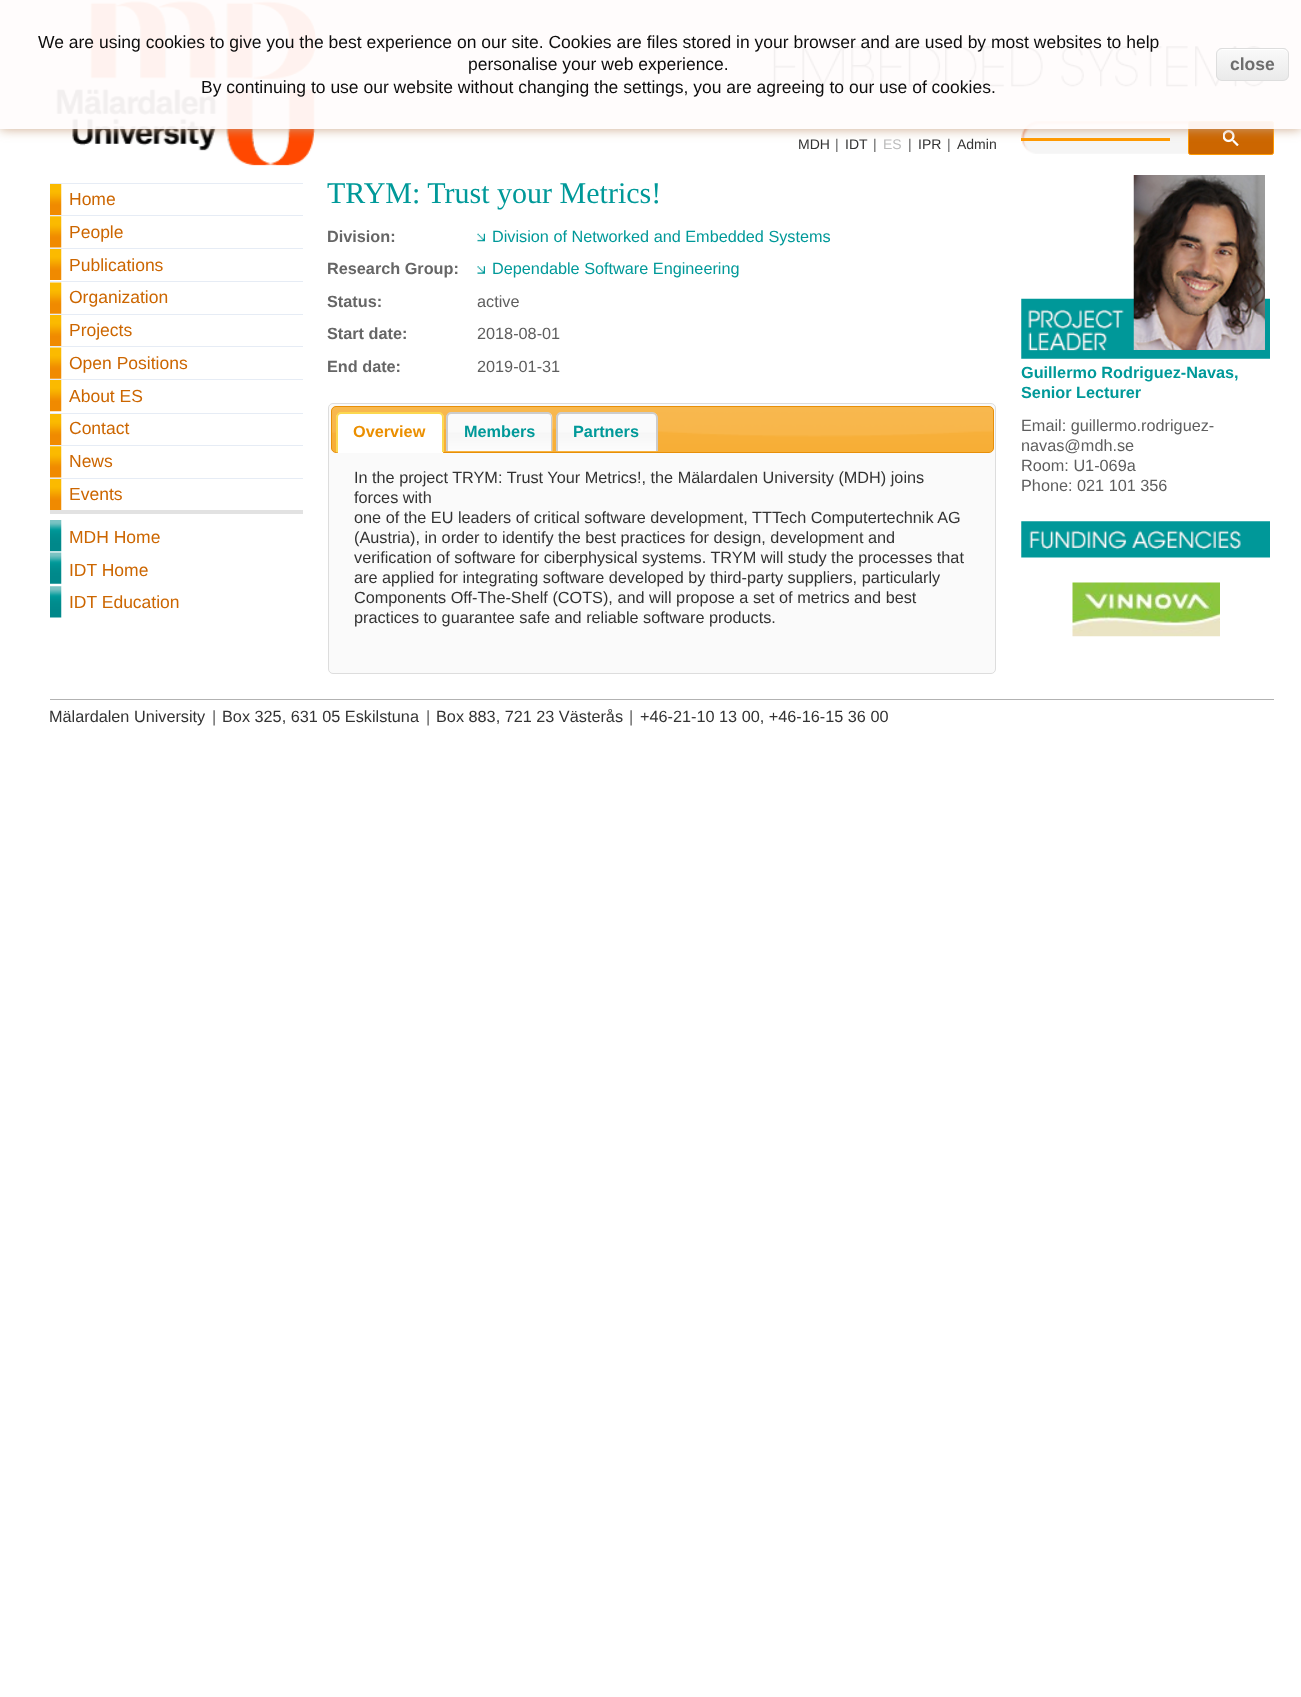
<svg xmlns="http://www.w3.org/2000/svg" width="1301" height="1697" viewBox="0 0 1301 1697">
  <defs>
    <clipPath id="clip1"><path d="M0 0H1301V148H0ZM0 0H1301V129H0Z" clip-rule="evenodd"/></clipPath>
    <filter id="blur1" x="-50%" y="-200%" width="200%" height="500%"><feGaussianBlur stdDeviation="6"/></filter>
    <clipPath id="clip2"><rect x="1216" y="48" width="73" height="33" rx="6"/></clipPath>
    <linearGradient id="g1" gradientUnits="userSpaceOnUse" x1="1218" y1="18" x2="1218" y2="49"><stop offset="0.05" stop-color="#f9f9f9"/><stop offset="1" stop-color="#eaeaea"/></linearGradient>
    <linearGradient id="g2" gradientUnits="userSpaceOnUse" x1="1218" y1="49" x2="1218" y2="80"><stop offset="0.05" stop-color="#f9f9f9"/><stop offset="1" stop-color="#eaeaea"/></linearGradient>
  </defs>
  <rect width="100%" height="100%" fill="#ffffff"/>
  <rect x="50" y="699" width="1224" height="1" fill="#b2b2b2"/>
  <image x="56" y="1" width="261" height="165" href="img1.png"/>
  <image x="773" y="46" width="493" height="41" href="img2.png"/>
  <image x="1021" y="121" width="252" height="33" href="img3.png"/>
  <rect x="1021" y="138" width="149" height="3" fill="#ff9900"/>
  <rect x="1188.5" y="121.5" width="85" height="33" rx="2" fill="#cc6600" stroke="#ff9900"/>
  <image x="1223" y="130" width="16" height="16" href="img4.png"/>
  <g clip-path="url(#clip1)">
    <rect x="0" y="0" width="1301" height="129" fill="#c9a383" fill-opacity="0.95" filter="url(#blur1)"/>
  </g>
  <rect x="0" y="0" width="1301" height="129" fill="#fffcfc" fill-opacity="0.95"/>
  <text x="38" y="48" font-family="Liberation Sans" font-size="17.5" fill="#0d0d0d">We are using cookies to give you the best experience on our site. Cookies are files stored in your browser and are used by most websites to help</text>
  <text x="468" y="70" font-family="Liberation Sans" font-size="17.5" fill="#0d0d0d">personalise your web experience.</text>
  <text x="201" y="93" font-family="Liberation Sans" font-size="17.5" fill="#0d0d0d">By continuing to use our website without changing the settings, you are agreeing to our use of cookies.</text>
  <rect x="1216" y="48" width="73" height="33" rx="6" fill="#f9f9f9" fill-opacity="0.95"/>
  <g clip-path="url(#clip2)">
    <rect x="1216" y="48" width="73" height="1" fill="url(#g1)"/>
    <rect x="1216" y="49" width="73" height="31" fill="url(#g2)"/>
  </g>
  <path d="M1222 50H1282C1285 50 1288 52 1288 55C1288 47 1279 49 1273 49H1233C1227 49 1218 47 1218 55C1218 52 1220 50 1222 50Z" fill="#ffffff"/>
  <rect x="1216.5" y="48.5" width="72" height="32" rx="5.5" fill="none" stroke="#dcdcdc" stroke-opacity="0.95"/>
  <text x="1230" y="70" font-family="Liberation Sans" font-size="17.5" font-weight="bold" fill="#6d6d6d">close</text>
  <text x="49" y="722" font-family="Liberation Sans" font-size="16.25" fill="#333333">Mälardalen University</text>
  <text x="212" y="722" font-family="Liberation Sans" font-size="16.25" fill="#5e5e5e">|</text>
  <text x="222" y="722" font-family="Liberation Sans" font-size="16.25" fill="#333333">Box 325, 631 05 Eskilstuna</text>
  <text x="426" y="722" font-family="Liberation Sans" font-size="16.25" fill="#5e5e5e">|</text>
  <text x="436" y="722" font-family="Liberation Sans" font-size="16.25" fill="#333333">Box 883, 721 23 Västerås</text>
  <text x="629" y="722" font-family="Liberation Sans" font-size="16.25" fill="#5e5e5e">|</text>
  <text x="640" y="722" font-family="Liberation Sans" font-size="16.25" fill="#333333">+46-21-10 13 00, +46-16-15 36 00</text>
  <text x="798" y="149" font-family="Liberation Sans" font-size="14" fill="#333333">MDH</text>
  <text x="835" y="149" font-family="Liberation Sans" font-size="14" fill="#5e5e5e">|</text>
  <text x="845" y="149" font-family="Liberation Sans" font-size="14" fill="#333333">IDT</text>
  <text x="873" y="149" font-family="Liberation Sans" font-size="14" fill="#5e5e5e">|</text>
  <text x="883" y="149" font-family="Liberation Sans" font-size="14" fill="#bbbbbb">ES</text>
  <text x="908" y="149" font-family="Liberation Sans" font-size="14" fill="#5e5e5e">|</text>
  <text x="918" y="149" font-family="Liberation Sans" font-size="14" fill="#333333">IPR</text>
  <text x="947" y="149" font-family="Liberation Sans" font-size="14" fill="#5e5e5e">|</text>
  <text x="957" y="149" font-family="Liberation Sans" font-size="14" fill="#333333">Admin</text>
  <rect x="50" y="510" width="253" height="4" fill="#e2e2e2"/>
  <image x="50" y="184" width="12" height="31" href="img5.png"/>
  <rect x="50" y="183" width="253" height="1" fill="#e6ecf5"/>
  <text x="69" y="205" font-family="Liberation Sans" font-size="17.5" fill="#cc6600">Home</text>
  <image x="50" y="216" width="12" height="32" href="img6.png"/>
  <rect x="50" y="215" width="253" height="1" fill="#e6ecf5"/>
  <text x="69" y="238" font-family="Liberation Sans" font-size="17.5" fill="#cc6600">People</text>
  <image x="50" y="249" width="12" height="31" href="img5.png"/>
  <rect x="50" y="248" width="253" height="1" fill="#e6ecf5"/>
  <text x="69" y="271" font-family="Liberation Sans" font-size="17.5" fill="#cc6600">Publications</text>
  <image x="50" y="282" width="12" height="32" href="img7.png"/>
  <rect x="50" y="281" width="253" height="1" fill="#e6ecf5"/>
  <text x="69" y="303" font-family="Liberation Sans" font-size="17.5" fill="#cc6600">Organization</text>
  <image x="50" y="315" width="12" height="31" href="img8.png"/>
  <rect x="50" y="314" width="253" height="1" fill="#e6ecf5"/>
  <text x="69" y="336" font-family="Liberation Sans" font-size="17.5" fill="#cc6600">Projects</text>
  <image x="50" y="347" width="12" height="32" href="img7.png"/>
  <rect x="50" y="346" width="253" height="1" fill="#e6ecf5"/>
  <text x="69" y="369" font-family="Liberation Sans" font-size="17.5" fill="#cc6600">Open Positions</text>
  <image x="50" y="380" width="12" height="32" href="img9.png"/>
  <rect x="50" y="379" width="253" height="1" fill="#e6ecf5"/>
  <text x="69" y="402" font-family="Liberation Sans" font-size="17.5" fill="#cc6600">About ES</text>
  <image x="50" y="414" width="12" height="31" href="img5.png"/>
  <rect x="50" y="413" width="253" height="1" fill="#e6ecf5"/>
  <text x="69" y="434" font-family="Liberation Sans" font-size="17.5" fill="#cc6600">Contact</text>
  <image x="50" y="446" width="12" height="32" href="img6.png"/>
  <rect x="50" y="445" width="253" height="1" fill="#e6ecf5"/>
  <text x="69" y="467" font-family="Liberation Sans" font-size="17.5" fill="#cc6600">News</text>
  <image x="50" y="479" width="12" height="31" href="img5.png"/>
  <rect x="50" y="478" width="253" height="1" fill="#e6ecf5"/>
  <text x="69" y="500" font-family="Liberation Sans" font-size="17.5" fill="#cc6600">Events</text>
  <image x="50" y="520" width="12" height="32" href="img10.png"/>
  <text x="69" y="543" font-family="Liberation Sans" font-size="17.5" fill="#cc6600">MDH Home</text>
  <image x="50" y="552" width="12" height="32" href="img11.png"/>
  <text x="69" y="576" font-family="Liberation Sans" font-size="17.5" fill="#cc6600">IDT Home</text>
  <image x="50" y="586" width="12" height="32" href="img12.png"/>
  <text x="69" y="608" font-family="Liberation Sans" font-size="17.5" fill="#cc6600">IDT Education</text>
  <text x="327" y="203" font-family="Liberation Serif" font-size="30" fill="#009999">TRYM: Trust your Metrics!</text>
  <text x="327" y="242" font-family="Liberation Sans" font-size="16.25" font-weight="bold" fill="#666666">Division:</text>
  <image x="477" y="233" width="8" height="9" href="img13.png"/>
  <text x="492" y="242" font-family="Liberation Sans" font-size="16.25" fill="#009999">Division of Networked and Embedded Systems</text>
  <text x="327" y="274" font-family="Liberation Sans" font-size="16.25" font-weight="bold" fill="#666666">Research Group:</text>
  <image x="477" y="266" width="8" height="8" href="img14.png"/>
  <text x="492" y="274" font-family="Liberation Sans" font-size="16.25" fill="#009999">Dependable Software Engineering</text>
  <text x="327" y="307" font-family="Liberation Sans" font-size="16.25" font-weight="bold" fill="#666666">Status:</text>
  <text x="477" y="307" font-family="Liberation Sans" font-size="16.25" fill="#5e5e5e">active</text>
  <text x="327" y="339" font-family="Liberation Sans" font-size="16.25" font-weight="bold" fill="#666666">Start date:</text>
  <text x="477" y="339" font-family="Liberation Sans" font-size="16.25" fill="#5e5e5e">2018-08-01</text>
  <text x="327" y="372" font-family="Liberation Sans" font-size="16.25" font-weight="bold" fill="#666666">End date:</text>
  <text x="477" y="372" font-family="Liberation Sans" font-size="16.25" fill="#5e5e5e">2019-01-31</text>
  <rect x="328.5" y="403.5" width="667" height="270" rx="4.5" fill="#fafafa" stroke="#dddddd"/>
  <image x="331" y="406" width="663" height="46" href="img15.png"/>
  <rect x="331.5" y="406.5" width="662" height="46" rx="4.5" fill="none" stroke="#e78f08"/>
  <path d="M342 414H439C441 414 443 416 443 418V453H338V418C338 416 340 414 342 414Z" fill="#ffffff"/>
  <image x="336" y="412" width="108" height="41" href="img16.png"/>
  <path d="M341 412H439C442 412 444 415 444 418V452H336V418C336 415 338 412 341 412ZM341 414H439C441 414 442 415 442 418V452H338V418C338 415 339 414 341 414Z" fill="#fbd850" fill-rule="evenodd"/>
  <text x="353" y="437" font-family="Liberation Sans" font-size="16.25" font-weight="bold" fill="#eb8f00">Overview</text>
  <image x="446" y="412" width="107" height="40" href="img17.png"/>
  <path d="M451 412H548C550 412 552 415 552 418V451H446V418C446 415 448 412 451 412ZM451 414H548C550 414 551 415 551 418V451H448V418C448 415 449 414 451 414Z" fill="#cccccc" fill-rule="evenodd"/>
  <text x="464" y="437" font-family="Liberation Sans" font-size="16.25" font-weight="bold" fill="#009999">Members</text>
  <image x="556" y="412" width="102" height="40" href="img18.png"/>
  <path d="M561 412H652C655 412 658 415 658 418V451H556V418C556 415 558 412 561 412ZM561 414H652C655 414 656 415 656 418V451H558V418C558 415 559 414 561 414Z" fill="#cccccc" fill-rule="evenodd"/>
  <text x="573" y="437" font-family="Liberation Sans" font-size="16.25" font-weight="bold" fill="#009999">Partners</text>
  <text x="354" y="483" font-family="Liberation Sans" font-size="16.25" fill="#333333">In the project TRYM: Trust Your Metrics!, the Mälardalen University (MDH) joins</text>
  <text x="354" y="503" font-family="Liberation Sans" font-size="16.25" fill="#333333">forces with</text>
  <text x="354" y="523" font-family="Liberation Sans" font-size="16.25" fill="#333333">one of the EU leaders of critical software development, TTTech Computertechnik AG</text>
  <text x="354" y="543" font-family="Liberation Sans" font-size="16.25" fill="#333333">(Austria), in order to identify the best practices for design, development and</text>
  <text x="354" y="563" font-family="Liberation Sans" font-size="16.25" fill="#333333">verification of software for ciberphysical systems. TRYM will study the processes that</text>
  <text x="354" y="583" font-family="Liberation Sans" font-size="16.25" fill="#333333">are applied for integrating software developed by third-party suppliers, particularly</text>
  <text x="354" y="603" font-family="Liberation Sans" font-size="16.25" fill="#333333">Components Off-The-Shelf (COTS), and will propose a set of metrics and best</text>
  <text x="354" y="623" font-family="Liberation Sans" font-size="16.25" fill="#333333">practices to guarantee safe and reliable software products.</text>
  <image x="1021" y="298" width="249" height="61" href="img20.png"/>
  <image x="1133" y="175" width="132" height="175" href="img19.png"/>
  <text x="1021" y="378" font-family="Liberation Sans" font-size="16.25" font-weight="bold" fill="#009999">Guillermo Rodriguez-Navas,</text>
  <text x="1021" y="398" font-family="Liberation Sans" font-size="16.25" font-weight="bold" fill="#009999">Senior Lecturer</text>
  <text x="1021" y="431" font-family="Liberation Sans" font-size="16.25" fill="#5e5e5e">Email: guillermo.rodriguez-</text>
  <text x="1021" y="451" font-family="Liberation Sans" font-size="16.25" fill="#5e5e5e">navas@mdh.se</text>
  <text x="1021" y="471" font-family="Liberation Sans" font-size="16.25" fill="#5e5e5e">Room: U1-069a</text>
  <text x="1021" y="491" font-family="Liberation Sans" font-size="16.25" fill="#5e5e5e">Phone: 021 101 356</text>
  <image x="1021" y="521" width="249" height="37" href="img21.png"/>
  <image x="1072" y="582" width="148" height="55" href="img22.png"/>
</svg>
